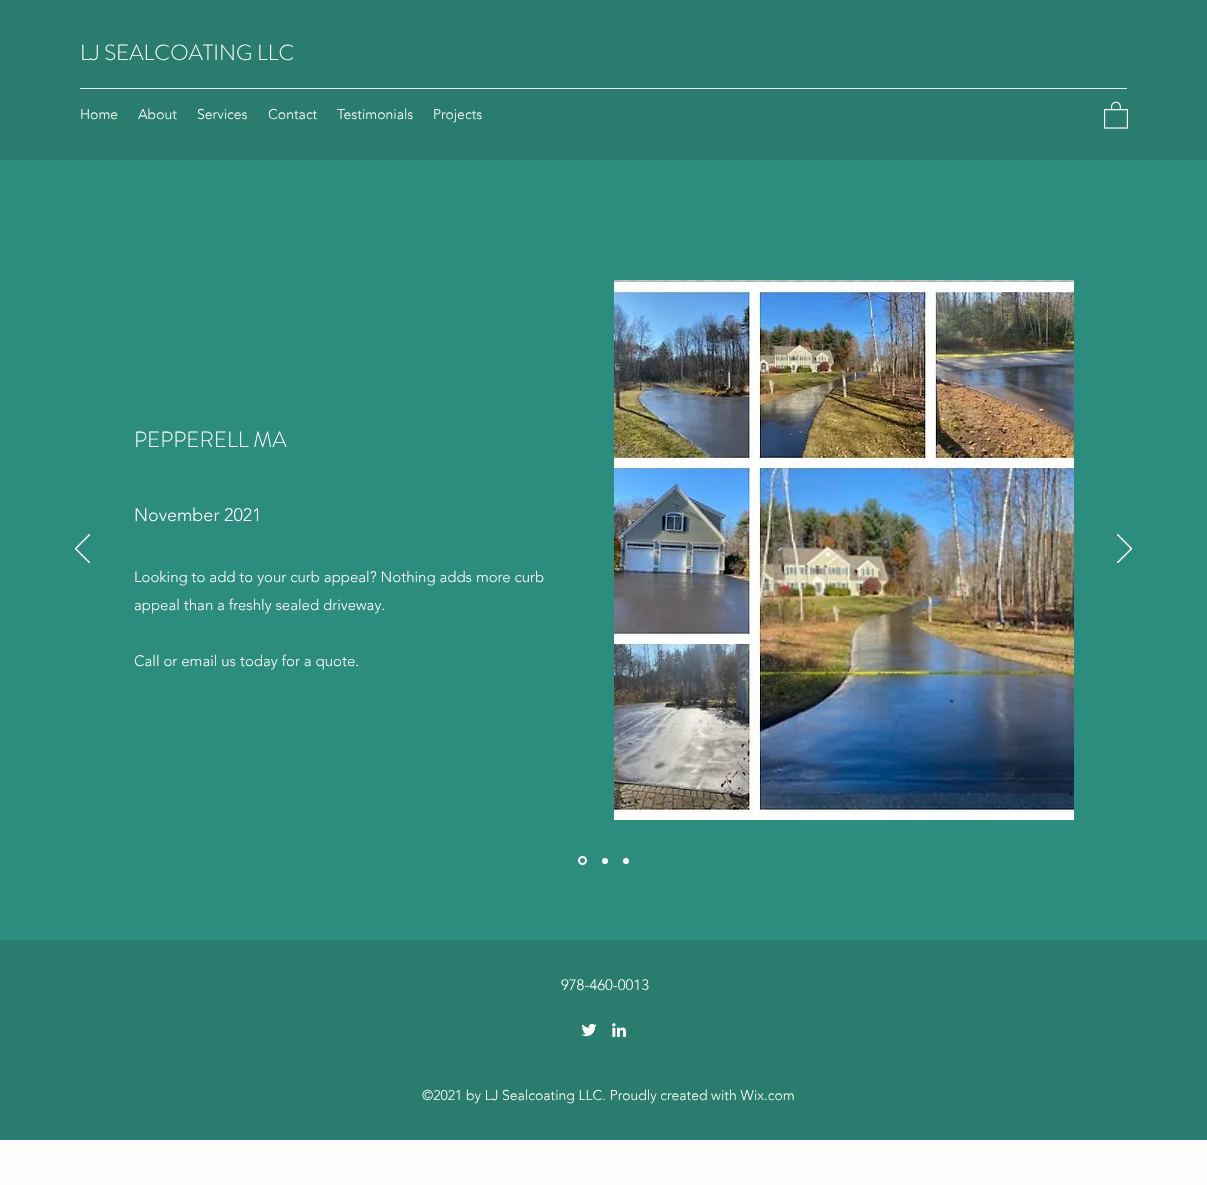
<svg xmlns="http://www.w3.org/2000/svg" width="1207" height="1185" viewBox="0 0 1207 1185">
  <rect width="100%" height="100%" fill="#fffefc"/>
  <rect x="0" y="0" width="1207" height="160" fill="#2a7c6f"/>
  <text x="80" y="60" font-family="'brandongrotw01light'" font-size="22" font-weight="300" fill="#fffefc">LJ SEALCOATING LLC</text>
  <rect x="80" y="88" width="1047" height="1" fill="#dfebe7"/>
  <text x="80" y="119" font-family="'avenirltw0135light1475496'" font-size="14" font-weight="300" fill="#fffefc">Home</text>
  <text x="138" y="119" font-family="'avenirltw0135light1475496'" font-size="14" font-weight="300" fill="#fffefc">About</text>
  <text x="197" y="119" font-family="'avenirltw0135light1475496'" font-size="14" font-weight="300" fill="#fffefc">Services</text>
  <text x="268" y="119" font-family="'avenirltw0135light1475496'" font-size="14" font-weight="300" fill="#fffefc">Contact</text>
  <text x="337" y="119" font-family="'avenirltw0135light1475496'" font-size="14" font-weight="300" fill="#fffefc">Testimonials</text>
  <text x="433" y="119" font-family="'avenirltw0135light1475496'" font-size="14" font-weight="300" fill="#fffefc">Projects</text>
  <image x="1104" y="101" width="24" height="28" href="img1.png"/>
  <rect x="0" y="160" width="1207" height="780" fill="#2c8d7e"/>
  <image x="75" y="534" width="15" height="29" href="img2.png"/>
  <text x="134" y="447" font-family="'brandongrotw01light'" font-size="22" font-weight="300" fill="#fffefc">PEPPERELL MA</text>
  <image x="614" y="280" width="460" height="540" href="img3.png"/>
  <text x="134" y="521" font-family="'avenirltw0135light1475496'" font-size="18" font-weight="300" fill="#fffefc">November 2021</text>
  <text x="134" y="582" font-family="'avenirltw0135light1475496'" font-size="15" font-weight="300" fill="#fffefc">Looking to add to your curb appeal? Nothing adds more curb</text>
  <text x="134" y="610" font-family="'avenirltw0135light1475496'" font-size="15" font-weight="300" fill="#fffefc">appeal than a freshly sealed driveway.</text>
  <text x="134" y="666" font-family="'avenirltw0135light1475496'" font-size="15" font-weight="300" fill="#fffefc">Call or email us today for a quote.</text>
  <image x="1117" y="534" width="15" height="29" href="img4.png"/>
  <circle cx="582.5" cy="860.5" r="3.5" fill="none" stroke="#fffefc" stroke-width="2"/>
  <circle cx="605" cy="861" r="3" fill="#fffefc"/>
  <circle cx="626" cy="861" r="3" fill="#fffefc"/>
  <rect x="0" y="940" width="1207" height="200" fill="#2a7c6f"/>
  <text x="561" y="990" font-family="'avenirltw0135light1475496'" font-size="15" font-weight="300" fill="#fffefc">978-460-0013</text>
  <image x="581" y="1023" width="16" height="14" href="img5.png"/>
  <image x="612" y="1023" width="15" height="15" href="img6.png"/>
  <text x="422" y="1100" font-family="'avenirltw0135light1475496'" font-size="14" font-weight="300" fill="#fffefc">©2021 by LJ Sealcoating LLC. Proudly created with Wix.com</text>
</svg>
